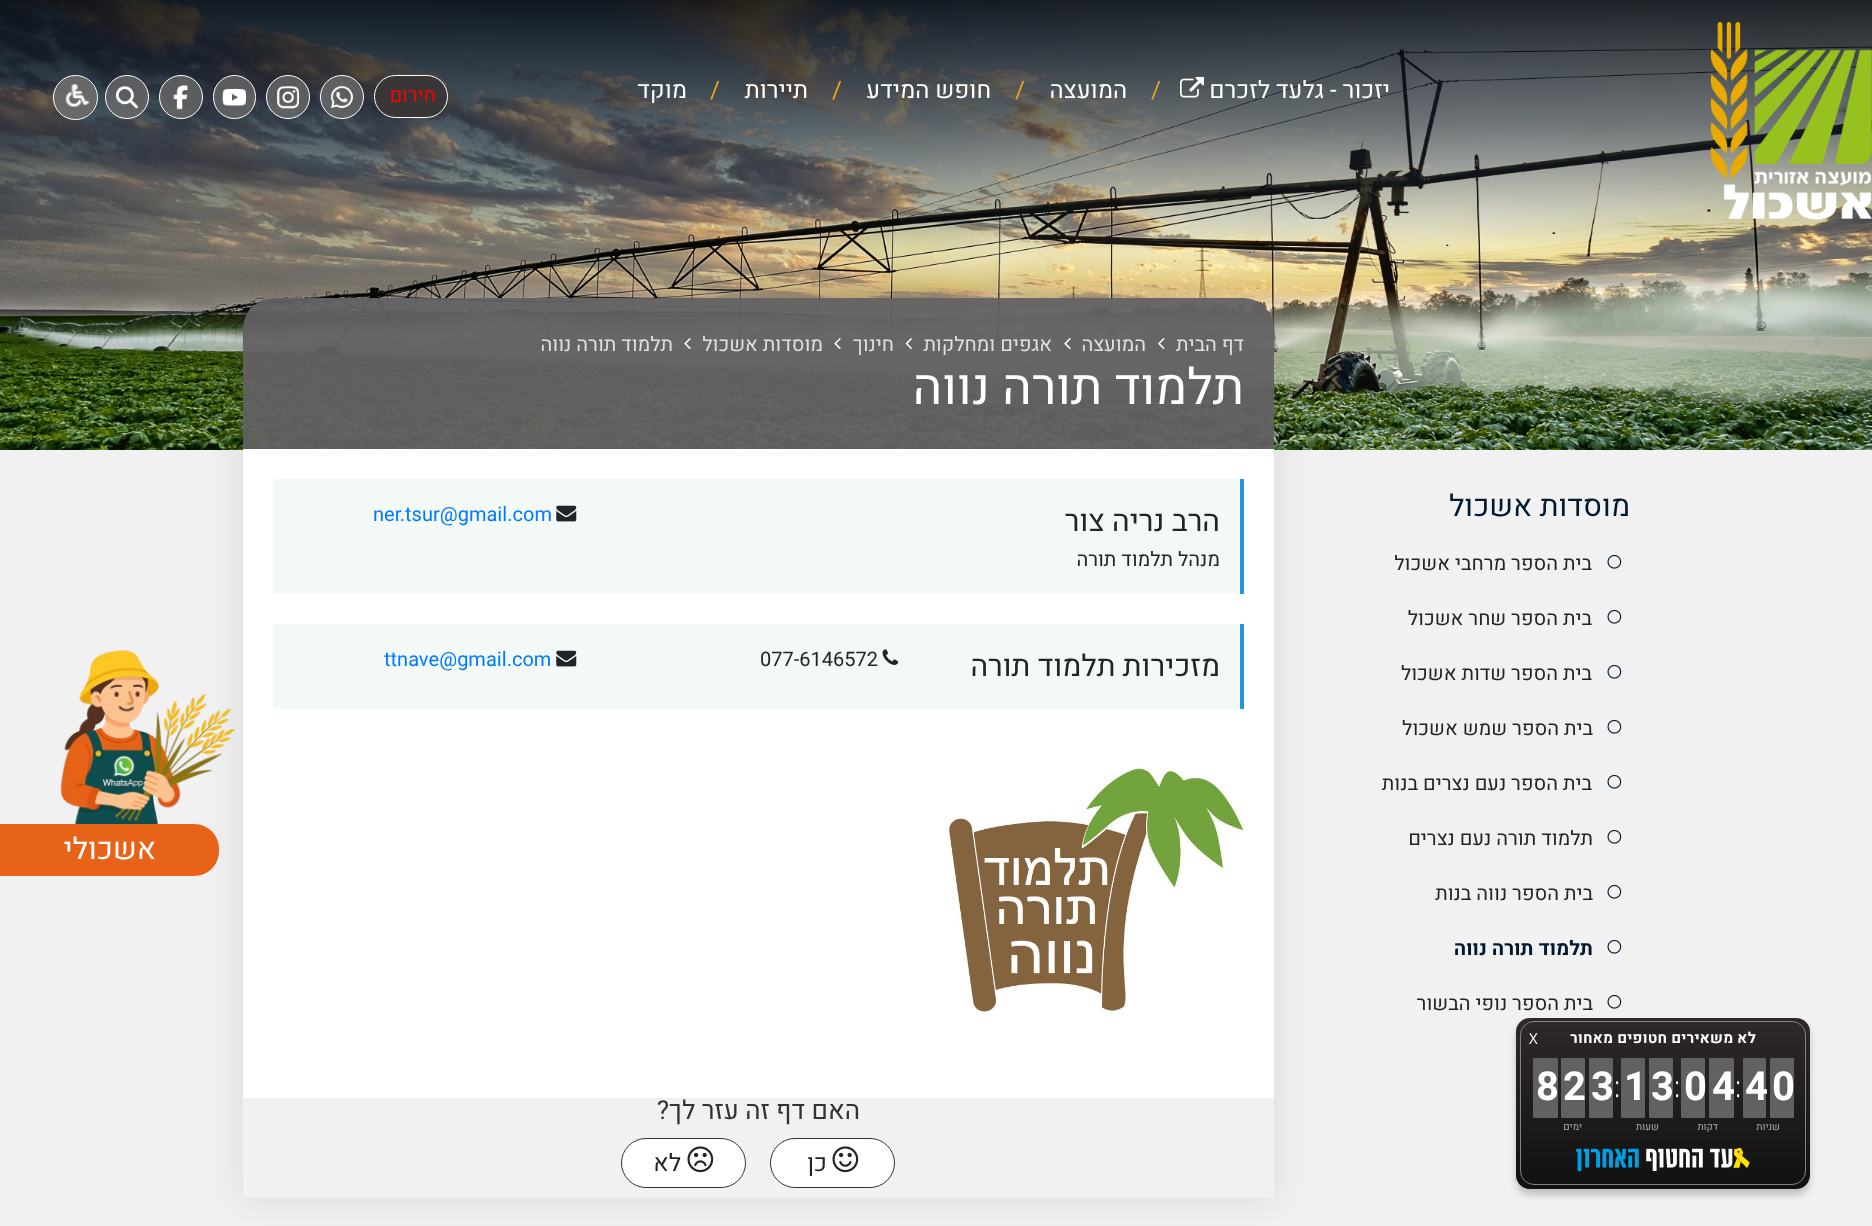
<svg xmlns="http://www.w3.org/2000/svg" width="1872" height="1226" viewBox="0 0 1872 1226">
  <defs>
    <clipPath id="clip1"><path d="M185 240H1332V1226H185ZM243 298H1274V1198H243Z" clip-rule="evenodd"/></clipPath>
    <filter id="blur1" x="-50%" y="-200%" width="200%" height="500%"><feGaussianBlur stdDeviation="19"/></filter>
    <filter id="blur2" x="-50%" y="-200%" width="200%" height="500%"><feGaussianBlur stdDeviation="3.5"/></filter>
    <linearGradient id="g1" gradientUnits="userSpaceOnUse" x1="1663" y1="1018" x2="1663" y2="1189"><stop offset="0" stop-color="#2f2929"/><stop offset="1" stop-color="#111111"/></linearGradient>
  </defs>
  <rect width="100%" height="100%" fill="#f1f1f1"/>
  <image x="0" y="0" width="1872" height="450" href="img1.png"/>
  <image x="1710" y="22" width="162" height="198" href="img2.png"/>
  <text x="1390" y="98" font-family="Heebo" font-size="24" direction="rtl" fill="#ffffff">יזכור - גלעד לזכרם</text>
  <image x="1180" y="76" width="24" height="22" href="img3.png"/>
  <text x="1151" y="98" font-family="Heebo" font-size="24" fill="#e4a723">/</text>
  <text x="1127" y="98" font-family="Heebo" font-size="24" direction="rtl" fill="#ffffff">המועצה</text>
  <text x="1015" y="98" font-family="Heebo" font-size="24" fill="#e4a723">/</text>
  <text x="991" y="98" font-family="Heebo" font-size="24" direction="rtl" fill="#ffffff">חופש המידע</text>
  <text x="832" y="98" font-family="Heebo" font-size="24" fill="#e4a723">/</text>
  <text x="808" y="98" font-family="Heebo" font-size="24" direction="rtl" fill="#ffffff">תיירות</text>
  <text x="710" y="98" font-family="Heebo" font-size="24" fill="#e4a723">/</text>
  <text x="687" y="98" font-family="Heebo" font-size="24" direction="rtl" fill="#ffffff">מוקד</text>
  <circle cx="342" cy="97" r="21.5" fill="#6b6b6b" fill-opacity="0.77" stroke="#ffffff"/>
  <circle cx="288" cy="97" r="21.5" fill="#6b6b6b" fill-opacity="0.77" stroke="#ffffff"/>
  <rect x="213.5" y="75.5" width="42" height="43" rx="21" fill="#6b6b6b" fill-opacity="0.77" stroke="#ffffff"/>
  <circle cx="181" cy="97" r="21.5" fill="#6b6b6b" fill-opacity="0.77" stroke="#ffffff"/>
  <circle cx="127" cy="97" r="21.5" fill="#6b6b6b" fill-opacity="0.77" stroke="#ffffff"/>
  <rect x="374.5" y="75.5" width="73" height="42" rx="21" fill="#383636" stroke="#ffffff"/>
  <text x="436" y="102" font-family="Heebo" font-size="20" direction="rtl" fill="#ff0000">חירום</text>
  <image x="331" y="86" width="22" height="23" href="img4.png"/>
  <image x="276" y="86" width="24" height="23" href="img5.png"/>
  <image x="222" y="88" width="24" height="18" href="img6.png"/>
  <image x="173" y="85" width="15" height="25" href="img7.png"/>
  <image x="116" y="86" width="22" height="23" href="img8.png"/>
  <image x="52" y="75" width="46" height="45" href="img9.png"/>
  <circle cx="75.5" cy="97.5" r="22" fill="none" stroke="#ffffff"/>
  <text x="1630" y="516" font-family="Heebo" font-size="30" direction="rtl" fill="#031930">מוסדות אשכול</text>
  <image x="1607" y="554" width="15" height="15" href="img10.png"/>
  <text x="1592" y="570" font-family="Heebo" font-size="20" direction="rtl" fill="#212529">בית הספר מרחבי אשכול</text>
  <image x="1607" y="609" width="15" height="15" href="img10.png"/>
  <text x="1592" y="625" font-family="Heebo" font-size="20" direction="rtl" fill="#212529">בית הספר שחר אשכול</text>
  <image x="1607" y="664" width="15" height="15" href="img10.png"/>
  <text x="1592" y="680" font-family="Heebo" font-size="20" direction="rtl" fill="#212529">בית הספר שדות אשכול</text>
  <image x="1607" y="719" width="15" height="15" href="img10.png"/>
  <text x="1593" y="735" font-family="Heebo" font-size="20" direction="rtl" fill="#212529">בית הספר שמש אשכול</text>
  <image x="1607" y="774" width="15" height="15" href="img10.png"/>
  <text x="1592" y="790" font-family="Heebo" font-size="20" direction="rtl" fill="#212529">בית הספר נעם נצרים בנות</text>
  <image x="1607" y="829" width="15" height="15" href="img10.png"/>
  <text x="1593" y="845" font-family="Heebo" font-size="20" direction="rtl" fill="#212529">תלמוד תורה נעם נצרים</text>
  <image x="1607" y="884" width="15" height="15" href="img10.png"/>
  <text x="1593" y="900" font-family="Heebo" font-size="20" direction="rtl" fill="#212529">בית הספר נווה בנות</text>
  <image x="1607" y="939" width="15" height="15" href="img10.png"/>
  <text x="1593" y="955" font-family="Heebo" font-size="20" font-weight="bold" direction="rtl" fill="#031930">תלמוד תורה נווה</text>
  <image x="1607" y="994" width="15" height="15" href="img10.png"/>
  <text x="1593" y="1010" font-family="Heebo" font-size="20" direction="rtl" fill="#212529">בית הספר נופי הבשור</text>
  <g clip-path="url(#clip1)">
    <rect x="243" y="298" width="1031" height="900" fill="#000000" fill-opacity="0.1" filter="url(#blur1)"/>
  </g>
  <path d="M274 298H1243C1260 298 1274 312 1274 329V449H243V329C243 312 257 298 274 298Z" fill="#626163" fill-opacity="0.94"/>
  <text x="1244" y="351" font-family="Heebo" font-size="20" direction="rtl" fill="#e0e0e0">דף הבית</text>
  <image x="1158" y="338" width="7" height="12" href="img11.png"/>
  <text x="1146" y="351" font-family="Heebo" font-size="20" direction="rtl" fill="#e0e0e0">המועצה</text>
  <image x="1064" y="338" width="7" height="12" href="img12.png"/>
  <text x="1052" y="351" font-family="Heebo" font-size="20" direction="rtl" fill="#e0e0e0">אגפים ומחלקות</text>
  <image x="905" y="338" width="7" height="12" href="img13.png"/>
  <text x="894" y="351" font-family="Heebo" font-size="20" direction="rtl" fill="#e0e0e0">חינוך</text>
  <image x="834" y="338" width="7" height="12" href="img14.png"/>
  <text x="823" y="351" font-family="Heebo" font-size="20" direction="rtl" fill="#e0e0e0">מוסדות אשכול</text>
  <image x="684" y="338" width="7" height="12" href="img15.png"/>
  <text x="673" y="351" font-family="Heebo" font-size="20" direction="rtl" fill="#e0e0e0">תלמוד תורה נווה</text>
  <text x="1244" y="404" font-family="Heebo" font-size="50" direction="rtl" fill="#ffffff">תלמוד תורה נווה</text>
  <rect x="243" y="449" width="1031" height="649" fill="#ffffff"/>
  <rect x="273" y="479" width="967" height="115" fill="#f3f9f7"/>
  <rect x="1240" y="479" width="4" height="115" fill="#1d99d9"/>
  <text x="1220" y="531" font-family="Heebo" font-size="30" direction="rtl" fill="#212529">הרב נריה צור</text>
  <text x="1220" y="566" font-family="Heebo" font-size="20" direction="rtl" fill="#212529">מנהל תלמוד תורה</text>
  <image x="556" y="505" width="21" height="17" href="img16.png"/>
  <text x="373" y="521" font-family="Heebo" font-size="20" fill="#007bff">ner.tsur@gmail.com</text>
  <rect x="273" y="624" width="967" height="85" fill="#f3f9f7"/>
  <rect x="1240" y="624" width="4" height="85" fill="#1d99d9"/>
  <text x="1220" y="676" font-family="Heebo" font-size="30" direction="rtl" fill="#212529">מזכירות תלמוד תורה</text>
  <image x="882" y="649" width="17" height="16" href="img17.png"/>
  <text x="760" y="666" font-family="Heebo" font-size="20" fill="#212529">077-6146572</text>
  <image x="556" y="650" width="21" height="17" href="img16.png"/>
  <text x="384" y="666" font-family="Heebo" font-size="20" fill="#007bff">ttnave@gmail.com</text>
  <image x="945" y="768" width="299" height="245" href="img18.png"/>
  <text x="860" y="1119" font-family="Heebo" font-size="26" direction="rtl" fill="#333333">האם דף זה עזר לך?</text>
  <rect x="770.5" y="1138.5" width="124" height="49" rx="24.5" fill="#ffffff" stroke="#333333"/>
  <image x="832" y="1146" width="27" height="27" href="img19.png"/>
  <text x="827" y="1171" font-family="Heebo" font-size="24" direction="rtl" fill="#212529">כן</text>
  <rect x="621.5" y="1138.5" width="124" height="49" rx="24.5" fill="#ffffff" stroke="#333333"/>
  <image x="687" y="1146" width="27" height="27" href="img20.png"/>
  <text x="681" y="1171" font-family="Heebo" font-size="24" direction="rtl" fill="#212529">לא</text>
  <image x="60" y="649" width="176" height="175" href="img21.png"/>
  <path d="M0 824H194C208 824 219 835 219 849V851C219 865 208 876 194 876H0Z" fill="#e76318"/>
  <text x="156" y="859" font-family="Heebo" font-size="30" direction="rtl" fill="#ffffff">אשכולי</text>
  <rect x="1516" y="1024" width="294" height="171" rx="14" fill="#000000" fill-opacity="0.2" filter="url(#blur2)"/>
  <rect x="1516" y="1018" width="294" height="171" rx="14" fill="url(#g1)"/>
  <rect x="1520.5" y="1021.5" width="285" height="163" rx="13.5" fill="none" stroke="#867f8a"/>
  <text x="1756" y="1043" font-family="Heebo" font-size="15" font-weight="bold" letter-spacing="0.25" direction="rtl" fill="#ffffff">לא משאירים חטופים מאחור</text>
  <rect x="1770" y="1058" width="24" height="60" rx="1" fill="#626060"/>
  <text x="1772" y="1100" font-family="Heebo" font-size="40" font-weight="bold" fill="#ffffff">0</text>
  <rect x="1743" y="1058" width="23" height="60" rx="1" fill="#626060"/>
  <text x="1745" y="1100" font-family="Heebo" font-size="40" font-weight="bold" fill="#ffffff">4</text>
  <text x="1780" y="1130" font-family="Heebo" font-size="10" direction="rtl" fill="#afafaf">שניות</text>
  <text x="1735" y="1097" font-family="Open Sans Condensed" font-size="30" font-weight="300" fill="#ffffff">:</text>
  <rect x="1709" y="1058" width="25" height="60" rx="1" fill="#626060"/>
  <text x="1712" y="1100" font-family="Heebo" font-size="40" font-weight="bold" fill="#ffffff">4</text>
  <rect x="1681" y="1058" width="24" height="60" rx="1" fill="#626060"/>
  <text x="1684" y="1100" font-family="Heebo" font-size="40" font-weight="bold" fill="#ffffff">0</text>
  <text x="1718" y="1130" font-family="Heebo" font-size="10" direction="rtl" fill="#afafaf">דקות</text>
  <text x="1674" y="1097" font-family="Open Sans Condensed" font-size="30" font-weight="300" fill="#ffffff">:</text>
  <rect x="1649" y="1058" width="24" height="60" rx="1" fill="#626060"/>
  <text x="1651" y="1100" font-family="Heebo" font-size="40" font-weight="bold" fill="#ffffff">3</text>
  <rect x="1621" y="1058" width="24" height="60" rx="1" fill="#626060"/>
  <text x="1624" y="1100" font-family="Heebo" font-size="40" font-weight="bold" fill="#ffffff">1</text>
  <text x="1659" y="1130" font-family="Heebo" font-size="10" direction="rtl" fill="#afafaf">שעות</text>
  <text x="1614" y="1097" font-family="Open Sans Condensed" font-size="30" font-weight="300" fill="#ffffff">:</text>
  <rect x="1589" y="1058" width="24" height="60" rx="1" fill="#626060"/>
  <text x="1591" y="1100" font-family="Heebo" font-size="40" font-weight="bold" fill="#ffffff">3</text>
  <rect x="1561" y="1058" width="24" height="60" rx="1" fill="#626060"/>
  <text x="1563" y="1100" font-family="Heebo" font-size="40" font-weight="bold" fill="#ffffff">2</text>
  <rect x="1533" y="1058" width="25" height="60" rx="1" fill="#626060"/>
  <text x="1536" y="1100" font-family="Heebo" font-size="40" font-weight="bold" fill="#ffffff">8</text>
  <text x="1582" y="1130" font-family="Heebo" font-size="10" direction="rtl" fill="#afafaf">ימים</text>
  <image x="1576" y="1148" width="174" height="23" href="img22.png"/>
  <text x="1529" y="1044" font-family="Open Sans" font-size="15" fill="#ffffff">X</text>
</svg>
